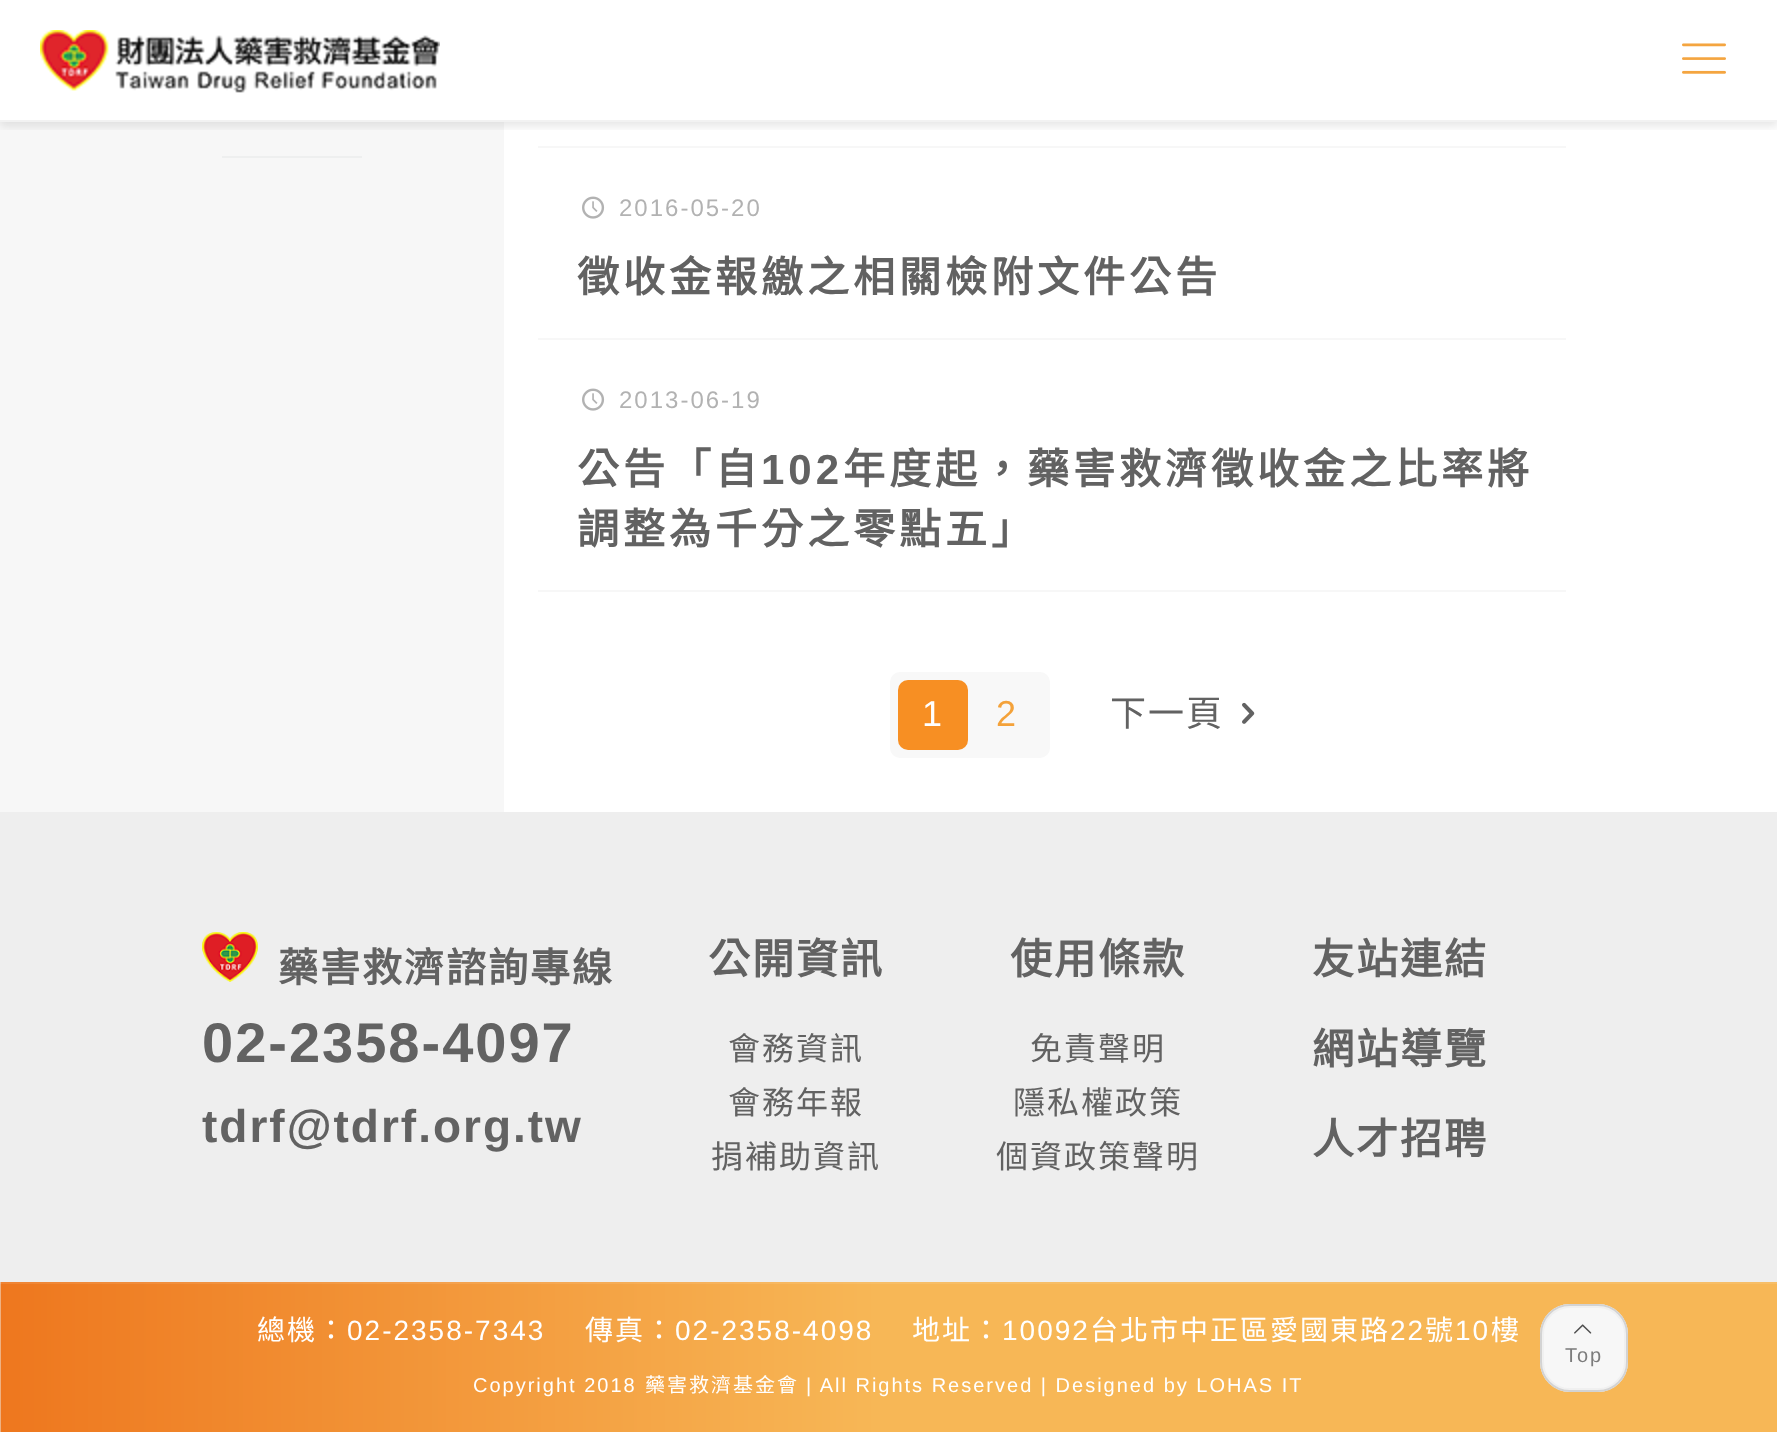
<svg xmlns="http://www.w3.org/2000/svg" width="1777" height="1432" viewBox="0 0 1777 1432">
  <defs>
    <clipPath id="clip1"><rect x="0" y="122" width="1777" height="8"/></clipPath>
    <filter id="blur1" x="-50%" y="-200%" width="200%" height="500%"><feGaussianBlur stdDeviation="5"/></filter>
  </defs>
  <rect width="100%" height="100%" fill="#ffffff"/>
  <rect x="0" y="0" width="504" height="812" fill="#f7f7f7"/>
  <g clip-path="url(#clip1)">
    <rect x="0" y="4" width="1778" height="122" fill="#000000" fill-opacity="0.1" filter="url(#blur1)"/>
  </g>
  <rect x="0" y="0" width="504" height="120" fill="#ffffff" fill-opacity="0.97"/>
  <rect x="0" y="120" width="1777" height="2" fill="#f2f2f2" fill-opacity="0.97"/>
  <image x="40" y="30" width="400" height="63" href="img1.png"/>
  <image x="1682" y="43" width="44" height="31" href="img2.png"/>
  <rect x="222" y="156" width="140" height="2" fill="#eeefef"/>
  <rect x="538" y="146" width="1028" height="2" fill="#f7f7f7"/>
  <rect x="538" y="338" width="1028" height="2" fill="#f7f7f7"/>
  <image x="582" y="196" width="23" height="23" href="img3.png"/>
  <text x="619" y="216" font-family="Liberation Sans" font-size="24" letter-spacing="2" fill="#b2b2b2">2016-05-20</text>
  <text x="577" y="292" font-family="Noto Sans CJK TC" font-size="42" font-weight="bold" letter-spacing="4" fill="#626262">徵收金報繳之相關檢附文件公告</text>
  <rect x="538" y="590" width="1028" height="2" fill="#f7f7f7"/>
  <image x="582" y="388" width="23" height="23" href="img3.png"/>
  <text x="619" y="408" font-family="Liberation Sans" font-size="24" letter-spacing="2" fill="#b2b2b2">2013-06-19</text>
  <text x="577" y="484" font-family="Noto Sans CJK TC" font-size="42" font-weight="bold" letter-spacing="4" fill="#626262">公告「自</text>
  <text x="761" y="484" font-family="Liberation Sans" font-size="42" font-weight="bold" letter-spacing="4" fill="#626262">102</text>
  <text x="843" y="484" font-family="Noto Sans CJK TC" font-size="42" font-weight="bold" letter-spacing="4" fill="#626262">年度起，藥害救濟徵收金之比率將</text>
  <text x="577" y="544" font-family="Noto Sans CJK TC" font-size="42" font-weight="bold" letter-spacing="4" fill="#626262">調整為千分之零點五」</text>
  <rect x="890" y="672" width="160" height="86" rx="10" fill="#f8f8f8"/>
  <rect x="898" y="680" width="70" height="70" rx="10" fill="#f78f23"/>
  <text x="922" y="726" font-family="Liberation Sans" font-size="36" letter-spacing="2" fill="#ffffff">1</text>
  <text x="996" y="726" font-family="Liberation Sans" font-size="36" letter-spacing="2" fill="#f4a23a">2</text>
  <text x="1110" y="726" font-family="Noto Sans CJK TC" font-size="36" letter-spacing="2" fill="#626262">下一頁</text>
  <image x="1242" y="702" width="13" height="22" href="img4.png"/>
  <rect x="0" y="812" width="1777" height="620" fill="#eeeeee"/>
  <image x="202" y="932" width="56" height="50" href="img5.png"/>
  <text x="278" y="982" font-family="Noto Sans CJK TC" font-size="40" font-weight="bold" letter-spacing="2" fill="#626262">藥害救濟諮詢專線</text>
  <text x="202" y="1062" font-family="Liberation Sans" font-size="56" font-weight="bold" letter-spacing="2" fill="#626262">02-2358-4097</text>
  <text x="202" y="1142" font-family="Liberation Sans" font-size="46" font-weight="bold" letter-spacing="2" fill="#626262">tdrf@tdrf.org.tw</text>
  <text x="708" y="974" font-family="Noto Sans CJK TC" font-size="42" font-weight="bold" letter-spacing="2" fill="#626262">公開資訊</text>
  <text x="728" y="1060" font-family="Noto Sans CJK TC" font-size="32" letter-spacing="2" fill="#626262">會務資訊</text>
  <text x="728" y="1114" font-family="Noto Sans CJK TC" font-size="32" letter-spacing="2" fill="#626262">會務年報</text>
  <text x="711" y="1168" font-family="Noto Sans CJK TC" font-size="32" letter-spacing="2" fill="#626262">捐補助資訊</text>
  <text x="1010" y="974" font-family="Noto Sans CJK TC" font-size="42" font-weight="bold" letter-spacing="2" fill="#626262">使用條款</text>
  <text x="1030" y="1060" font-family="Noto Sans CJK TC" font-size="32" letter-spacing="2" fill="#626262">免責聲明</text>
  <text x="1013" y="1114" font-family="Noto Sans CJK TC" font-size="32" letter-spacing="2" fill="#626262">隱私權政策</text>
  <text x="996" y="1168" font-family="Noto Sans CJK TC" font-size="32" letter-spacing="2" fill="#626262">個資政策聲明</text>
  <text x="1312" y="974" font-family="Noto Sans CJK TC" font-size="42" font-weight="bold" letter-spacing="2" fill="#626262">友站連結</text>
  <text x="1312" y="1064" font-family="Noto Sans CJK TC" font-size="42" font-weight="bold" letter-spacing="2" fill="#626262">網站導覽</text>
  <text x="1312" y="1154" font-family="Noto Sans CJK TC" font-size="42" font-weight="bold" letter-spacing="2" fill="#626262">人才招聘</text>
  <image x="0" y="1282" width="1777" height="150" href="img6.png"/>
  <rect x="0" y="1282" width="1777" height="2" fill="#ffffff" fill-opacity="0.1"/>
  <text x="257" y="1340" font-family="Noto Sans CJK TC" font-size="28" letter-spacing="2" fill="#ffffff">總機：</text>
  <text x="347" y="1340" font-family="Liberation Sans" font-size="28" letter-spacing="2" fill="#ffffff">02-2358-7343</text>
  <text x="585" y="1340" font-family="Noto Sans CJK TC" font-size="28" letter-spacing="2" fill="#ffffff">傳真：</text>
  <text x="675" y="1340" font-family="Liberation Sans" font-size="28" letter-spacing="2" fill="#ffffff">02-2358-4098</text>
  <text x="912" y="1340" font-family="Noto Sans CJK TC" font-size="28" letter-spacing="2" fill="#ffffff">地址：</text>
  <text x="1002" y="1340" font-family="Liberation Sans" font-size="28" letter-spacing="2" fill="#ffffff">10092</text>
  <text x="1090" y="1340" font-family="Noto Sans CJK TC" font-size="28" letter-spacing="2" fill="#ffffff">台北市中正區愛國東路</text>
  <text x="1390" y="1340" font-family="Liberation Sans" font-size="28" letter-spacing="2" fill="#ffffff">22</text>
  <text x="1425" y="1340" font-family="Noto Sans CJK TC" font-size="28" letter-spacing="2" fill="#ffffff">號</text>
  <text x="1455" y="1340" font-family="Liberation Sans" font-size="28" letter-spacing="2" fill="#ffffff">10</text>
  <text x="1491" y="1340" font-family="Noto Sans CJK TC" font-size="28" letter-spacing="2" fill="#ffffff">樓</text>
  <text x="473" y="1392" font-family="Liberation Sans" font-size="20" letter-spacing="2" fill="#ffffff">Copyright 2018</text>
  <text x="645" y="1392" font-family="Noto Sans CJK TC" font-size="20" letter-spacing="2" fill="#ffffff">藥害救濟基金會</text>
  <text x="806" y="1392" font-family="Liberation Sans" font-size="20" letter-spacing="2" fill="#ffffff">| All Rights Reserved | Designed by LOHAS IT</text>
  <rect x="1540" y="1304" width="88" height="88" rx="30" fill="#f7f7f7"/>
  <rect x="1543" y="1307" width="82" height="82" rx="27" fill="none" stroke="#f0f0f0" stroke-width="2"/>
  <rect x="1541" y="1305" width="86" height="86" rx="29" fill="none" stroke="#d3d3d3" stroke-width="2"/>
  <image x="1574" y="1324" width="18" height="10" href="img7.png"/>
  <text x="1565" y="1362" font-family="Liberation Sans" font-size="20" letter-spacing="2" fill="#7c7c7c">Top</text>
</svg>
